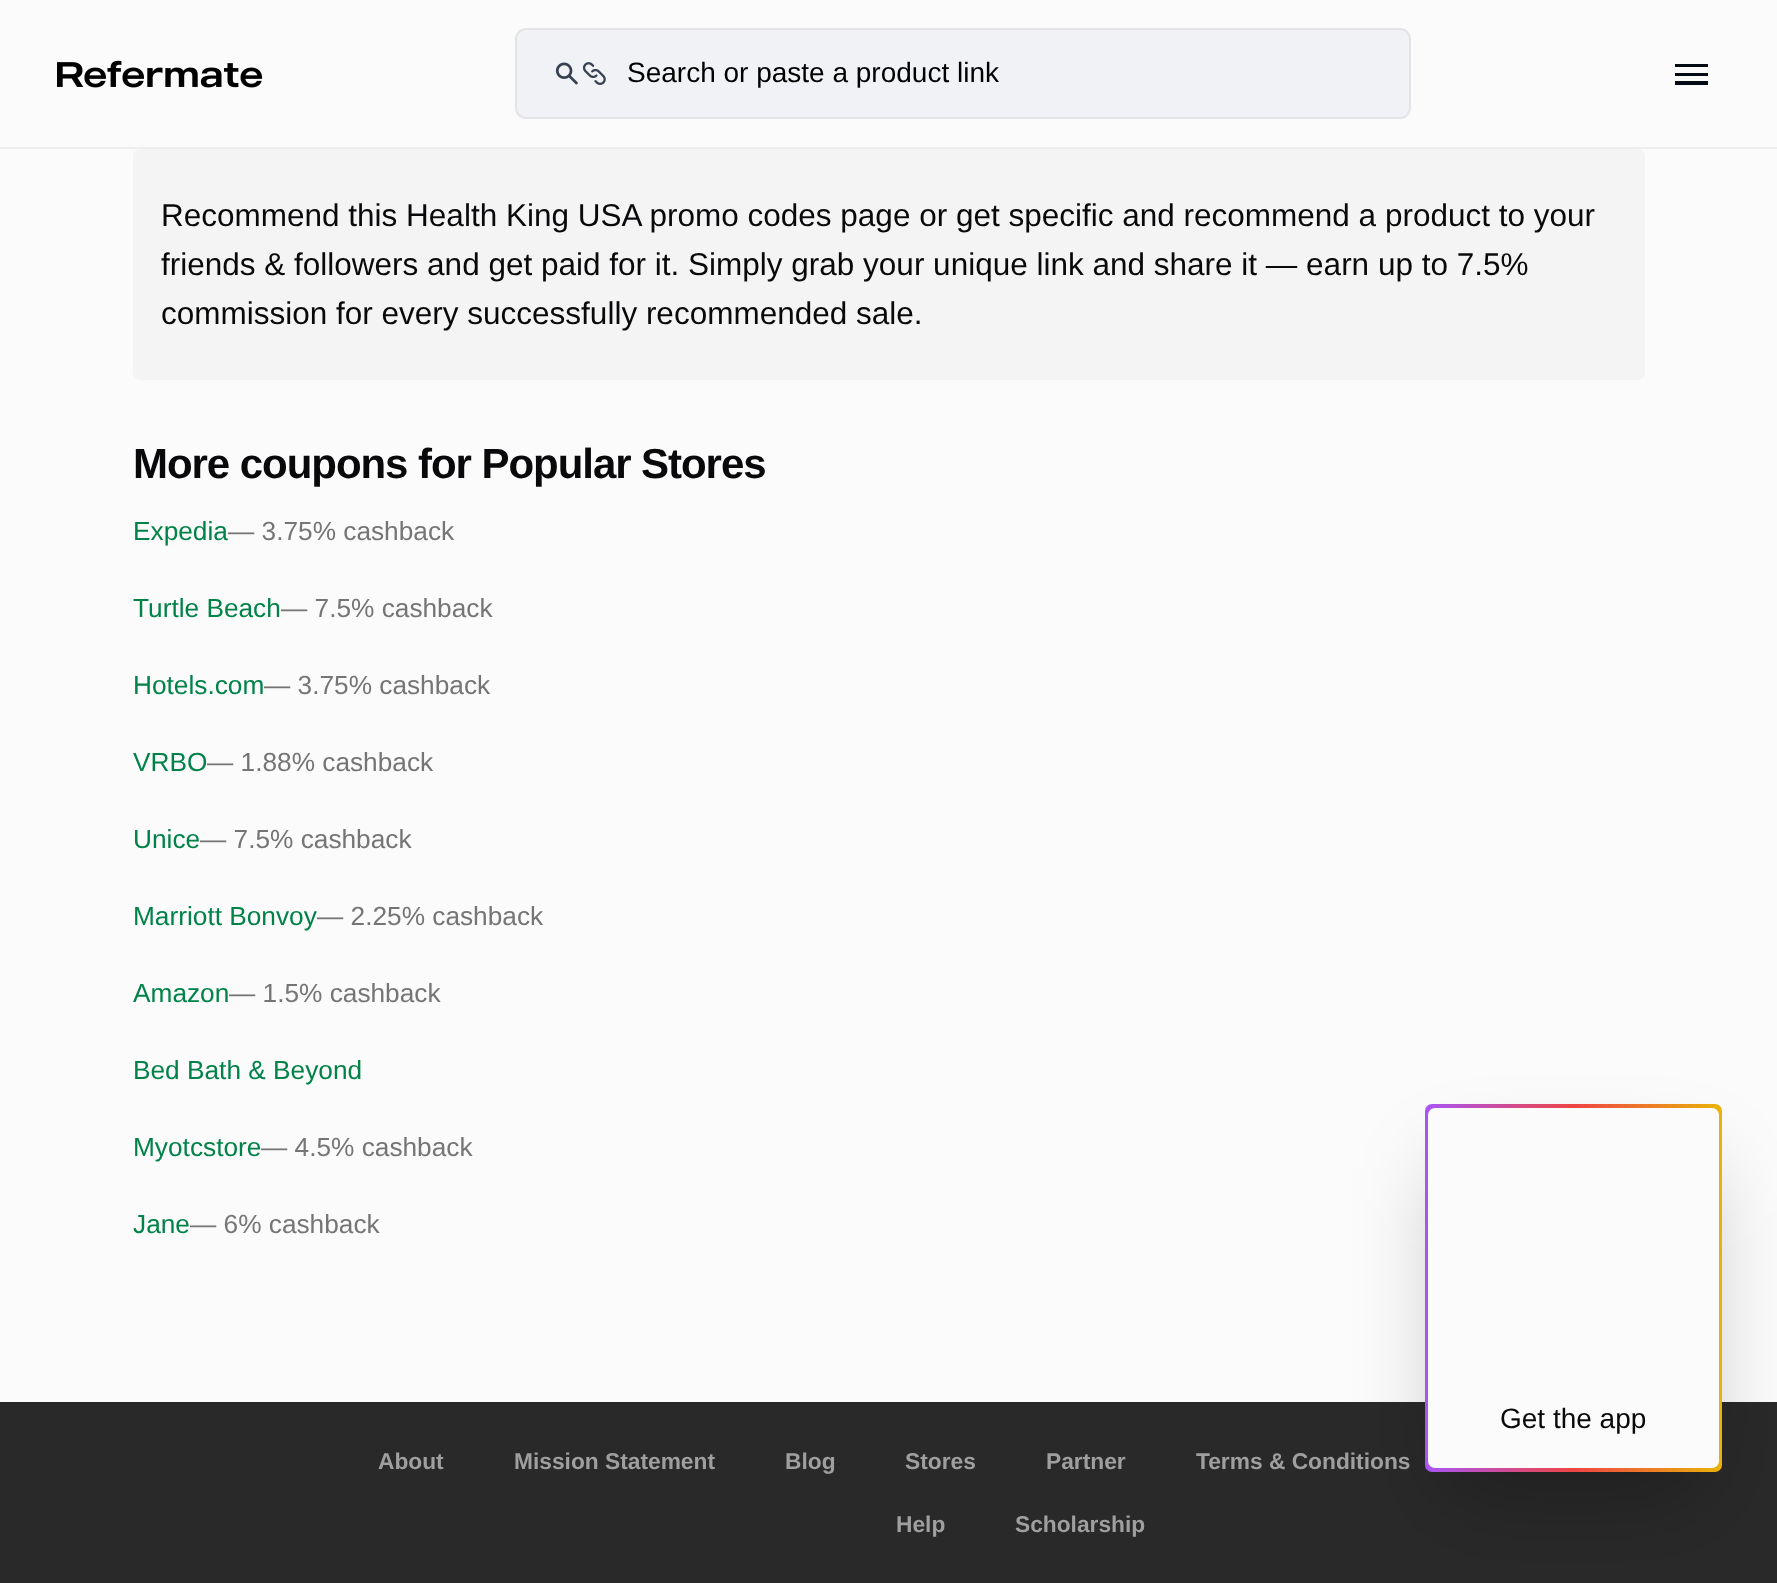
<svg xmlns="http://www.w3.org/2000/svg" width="1777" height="1583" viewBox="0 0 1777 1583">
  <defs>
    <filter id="blur1" x="-50%" y="-200%" width="200%" height="500%"><feGaussianBlur stdDeviation="44"/></filter>
    <linearGradient id="g1" gradientUnits="userSpaceOnUse" x1="1425" y1="1288" x2="1722" y2="1288"><stop offset="0" stop-color="#a855f7"/><stop offset="0.5" stop-color="#ef4444"/><stop offset="1" stop-color="#eab308"/></linearGradient>
  </defs>
  <rect width="100%" height="100%" fill="#fbfbfb"/>
  <rect x="0" y="147" width="1777" height="2" fill="#ededed"/>
  <image x="57" y="60" width="206" height="28" href="img1.png"/>
  <rect x="516" y="29" width="894" height="89" rx="10" fill="#f0f2f5" stroke="#e4e4e7" stroke-width="2"/>
  <image x="555" y="62" width="51" height="23" href="img2.png"/>
  <text x="627" y="82" font-family="Liberation Sans" font-size="28" fill="#000000">Search or paste a product link</text>
  <rect x="1675" y="64" width="33" height="3" fill="#040a14"/>
  <rect x="1675" y="73" width="33" height="3" fill="#040a14"/>
  <rect x="1675" y="81" width="33" height="4" fill="#040a14"/>
  <rect x="133" y="149" width="1512" height="231" rx="7" fill="#f4f4f5"/>
  <text x="161" y="226" font-family="Liberation Sans" font-size="31.5" fill="#09090b">Recommend this Health King USA promo codes page or get specific and recommend a product to your</text>
  <text x="161" y="275" font-family="Liberation Sans" font-size="31.5" fill="#09090b">friends &amp; followers and get paid for it. Simply grab your unique link and share it — earn up to 7.5%</text>
  <text x="161" y="324" font-family="Liberation Sans" font-size="31.5" fill="#09090b">commission for every successfully recommended sale.</text>
  <text x="133" y="478" font-family="Liberation Sans" font-size="42" font-weight="bold" letter-spacing="-1.05" fill="#09090b">More coupons for Popular Stores</text>
  <text x="133" y="540" font-family="Liberation Sans" font-size="26.25" fill="#008248">Expedia</text>
  <text x="228" y="540" font-family="Liberation Sans" font-size="26.25" fill="#757575">— 3.75% cashback</text>
  <text x="133" y="617" font-family="Liberation Sans" font-size="26.25" fill="#008248">Turtle Beach</text>
  <text x="281" y="617" font-family="Liberation Sans" font-size="26.25" fill="#757575">— 7.5% cashback</text>
  <text x="133" y="694" font-family="Liberation Sans" font-size="26.25" fill="#008248">Hotels.com</text>
  <text x="264" y="694" font-family="Liberation Sans" font-size="26.25" fill="#757575">— 3.75% cashback</text>
  <text x="133" y="771" font-family="Liberation Sans" font-size="26.25" fill="#008248">VRBO</text>
  <text x="207" y="771" font-family="Liberation Sans" font-size="26.25" fill="#757575">— 1.88% cashback</text>
  <text x="133" y="848" font-family="Liberation Sans" font-size="26.25" fill="#008248">Unice</text>
  <text x="200" y="848" font-family="Liberation Sans" font-size="26.25" fill="#757575">— 7.5% cashback</text>
  <text x="133" y="925" font-family="Liberation Sans" font-size="26.25" fill="#008248">Marriott Bonvoy</text>
  <text x="317" y="925" font-family="Liberation Sans" font-size="26.25" fill="#757575">— 2.25% cashback</text>
  <text x="133" y="1002" font-family="Liberation Sans" font-size="26.25" fill="#008248">Amazon</text>
  <text x="229" y="1002" font-family="Liberation Sans" font-size="26.25" fill="#757575">— 1.5% cashback</text>
  <text x="133" y="1079" font-family="Liberation Sans" font-size="26.25" fill="#008248">Bed Bath &amp; Beyond</text>
  <text x="133" y="1156" font-family="Liberation Sans" font-size="26.25" fill="#008248">Myotcstore</text>
  <text x="261" y="1156" font-family="Liberation Sans" font-size="26.25" fill="#757575">— 4.5% cashback</text>
  <text x="133" y="1233" font-family="Liberation Sans" font-size="26.25" fill="#008248">Jane</text>
  <text x="190" y="1233" font-family="Liberation Sans" font-size="26.25" fill="#757575">— 6% cashback</text>
  <rect x="0" y="1402" width="1777" height="181" fill="#292929"/>
  <rect x="1446" y="1169" width="255" height="326" fill="#000000" fill-opacity="0.25" filter="url(#blur1)"/>
  <rect x="1425" y="1104" width="297" height="368" rx="7" fill="url(#g1)"/>
  <rect x="1428" y="1108" width="291" height="360" rx="7" fill="#fbfbfb"/>
  <text x="1500" y="1428" font-family="Liberation Sans" font-size="28" fill="#09090b">Get the app</text>
  <text x="378" y="1469" font-family="Liberation Sans" font-size="22.75" font-weight="bold" fill="#9f9f9f">About</text>
  <text x="514" y="1469" font-family="Liberation Sans" font-size="22.75" font-weight="bold" fill="#9f9f9f">Mission Statement</text>
  <text x="785" y="1469" font-family="Liberation Sans" font-size="22.75" font-weight="bold" fill="#9f9f9f">Blog</text>
  <text x="905" y="1469" font-family="Liberation Sans" font-size="22.75" font-weight="bold" fill="#9f9f9f">Stores</text>
  <text x="1046" y="1469" font-family="Liberation Sans" font-size="22.75" font-weight="bold" fill="#9f9f9f">Partner</text>
  <text x="1196" y="1469" font-family="Liberation Sans" font-size="22.75" font-weight="bold" fill="#9f9f9f">Terms &amp; Conditions</text>
  <text x="896" y="1532" font-family="Liberation Sans" font-size="22.75" font-weight="bold" fill="#9f9f9f">Help</text>
  <text x="1015" y="1532" font-family="Liberation Sans" font-size="22.75" font-weight="bold" fill="#9f9f9f">Scholarship</text>
</svg>
